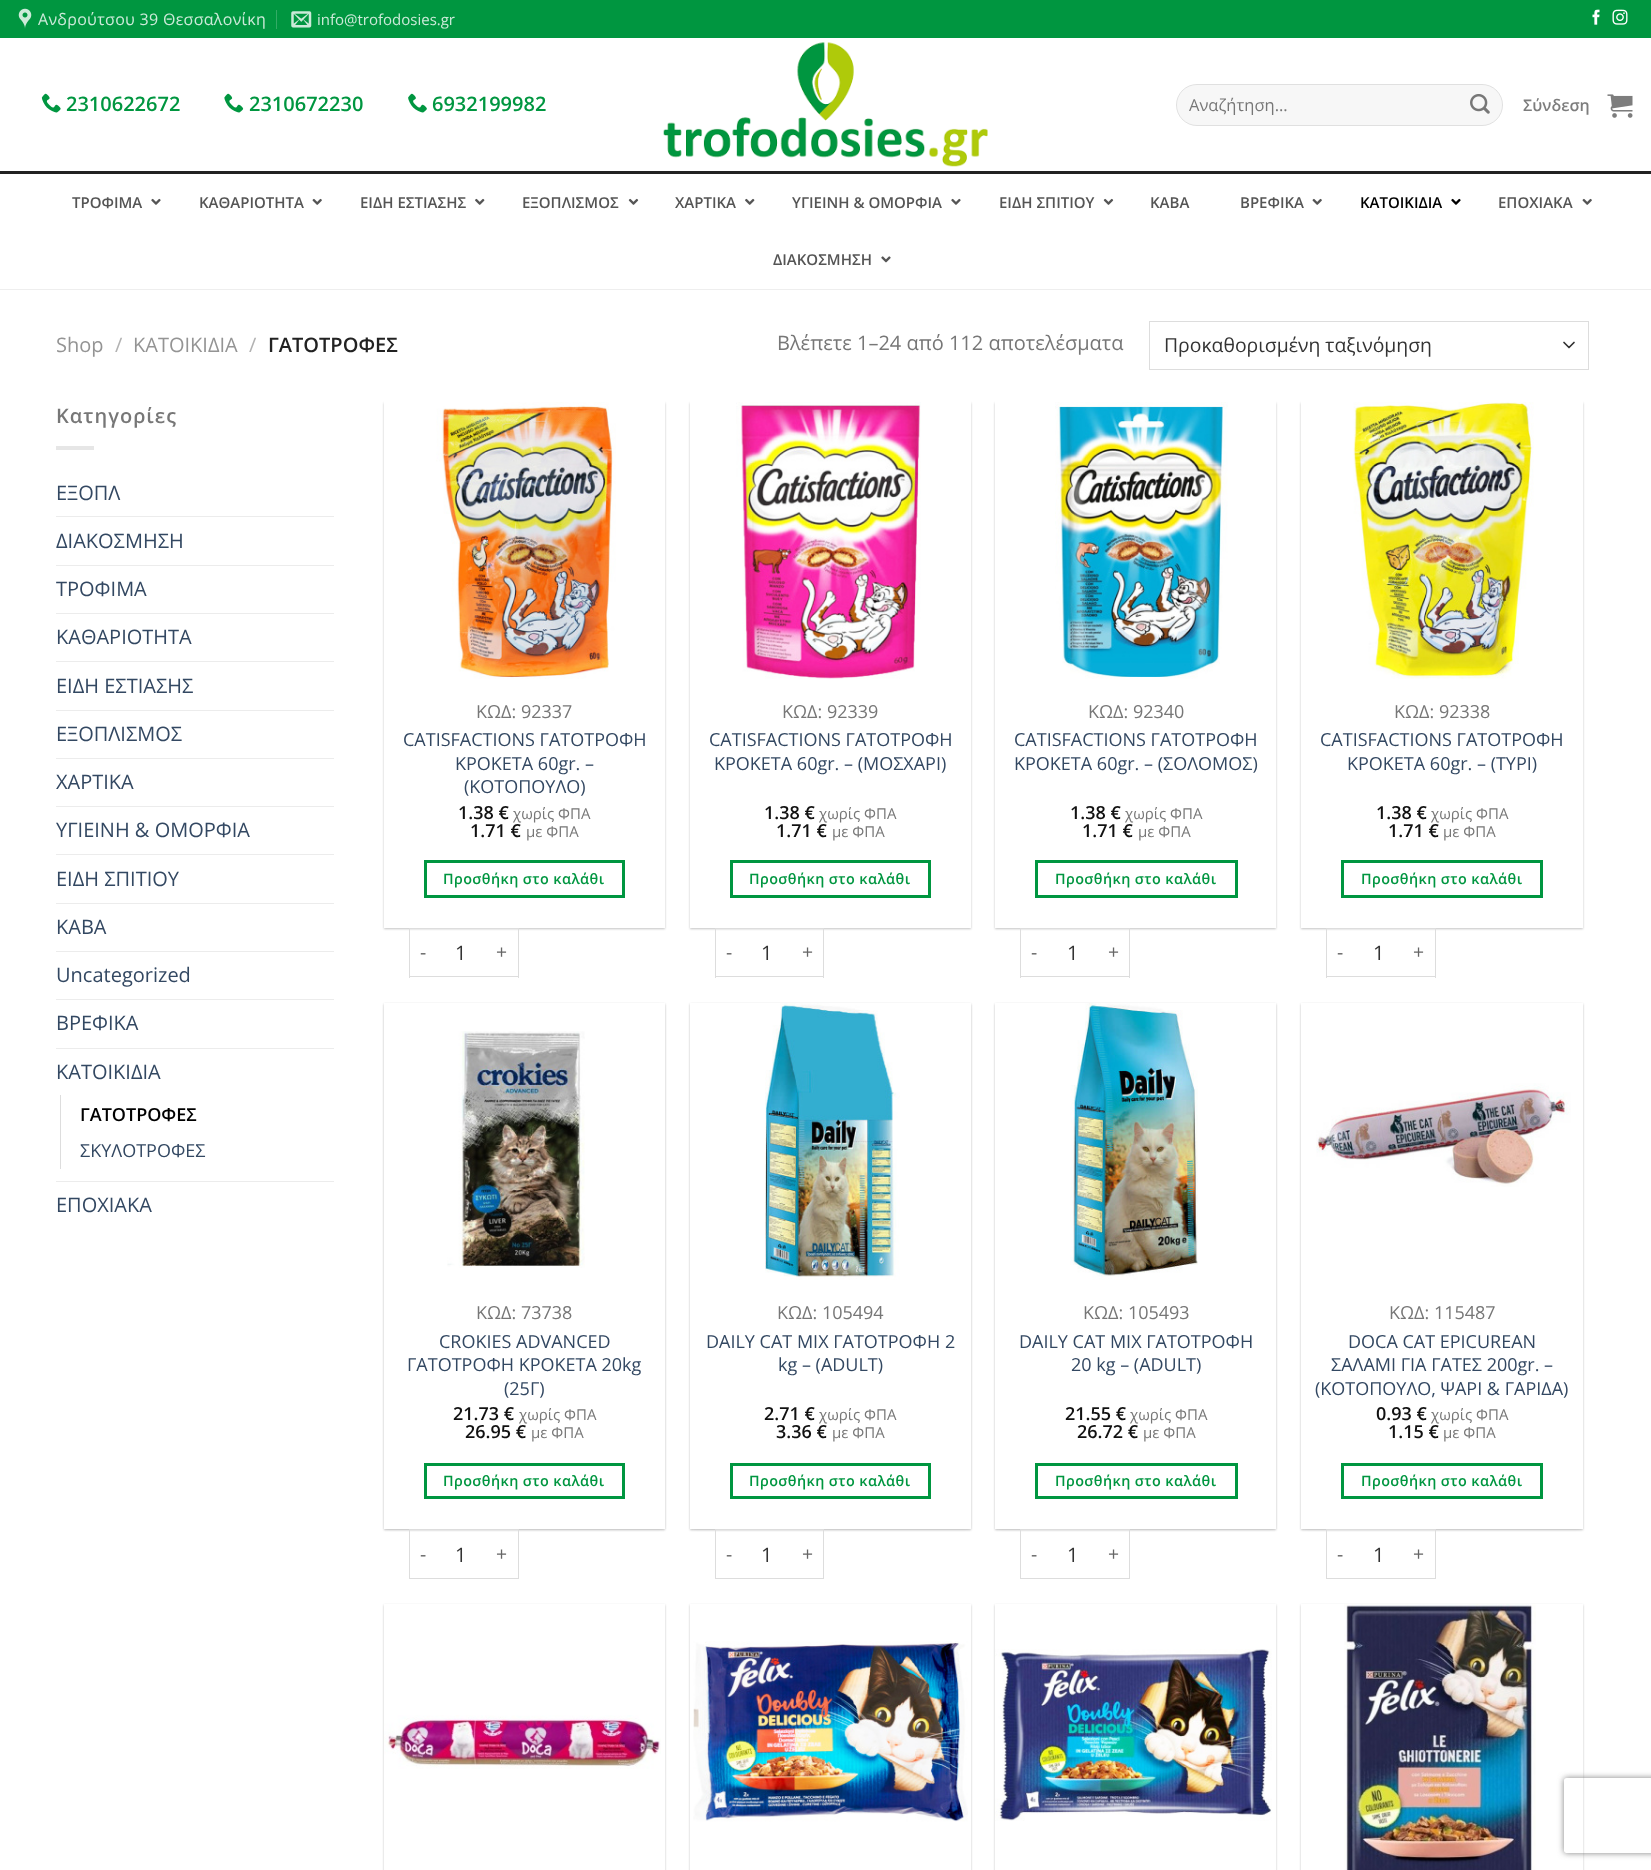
<svg xmlns="http://www.w3.org/2000/svg" width="1651" height="1870" viewBox="0 0 1651 1870">
  <defs>
    <filter id="blur1" x="-50%" y="-200%" width="200%" height="500%"><feGaussianBlur stdDeviation="1"/></filter>
    <filter id="blur2" x="-50%" y="-200%" width="200%" height="500%"><feGaussianBlur stdDeviation="2"/></filter>
    <clipPath id="clip1"><path d="M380 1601H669V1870H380ZM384 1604H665V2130H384Z" clip-rule="evenodd"/></clipPath>
    <clipPath id="clip2"><path d="M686 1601H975V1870H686ZM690 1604H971V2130H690Z" clip-rule="evenodd"/></clipPath>
    <clipPath id="clip3"><path d="M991 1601H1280V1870H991ZM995 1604H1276V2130H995Z" clip-rule="evenodd"/></clipPath>
    <clipPath id="clip4"><path d="M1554 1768H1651V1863H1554ZM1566.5 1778H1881.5C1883 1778 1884 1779 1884 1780.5V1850.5C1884 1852 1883 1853 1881.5 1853H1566.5C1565 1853 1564 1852 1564 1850.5V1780.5C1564 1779 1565 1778 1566.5 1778Z" clip-rule="evenodd"/></clipPath>
    <filter id="blur3" x="-50%" y="-200%" width="200%" height="500%"><feGaussianBlur stdDeviation="3"/></filter>
  </defs>
  <rect width="100%" height="100%" fill="#ffffff"/>
  <rect x="0" y="0" width="1651" height="38" fill="#009640"/>
  <image x="18" y="8" width="14" height="21" href="img1.png"/>
  <text x="38" y="25" font-family="Open Sans" font-size="16" letter-spacing="0.3" fill="#ccead9">Ανδρούτσου 39 Θεσσαλονίκη</text>
  <rect x="276" y="10" width="1" height="19" fill="#33ab66"/>
  <image x="291" y="11" width="21" height="17" href="img2.png"/>
  <text x="317" y="25" font-family="Open Sans" font-size="15" fill="#ccead9">info@trofodosies.gr</text>
  <image x="1592" y="9" width="8" height="16" href="img3.png"/>
  <image x="1612" y="9" width="16" height="16" href="img4.png"/>
  <image x="41" y="93" width="20" height="20" href="img5.png"/>
  <text x="66" y="111" font-family="Open Sans" font-size="20" font-weight="600" fill="#009640">2310622672</text>
  <image x="224" y="93" width="20" height="20" href="img6.png"/>
  <text x="249" y="111" font-family="Open Sans" font-size="20" font-weight="600" fill="#009640">2310672230</text>
  <image x="408" y="93" width="19" height="20" href="img7.png"/>
  <text x="432" y="111" font-family="Open Sans" font-size="20" font-weight="600" fill="#009640">6932199982</text>
  <image x="663" y="42" width="325" height="125" href="img8.png"/>
  <rect x="1176" y="84" width="327" height="42" rx="21" fill="#f7f7f7"/>
  <rect x="1176.5" y="84.5" width="326" height="41" rx="20.5" fill="none" stroke="#000000" stroke-opacity="0.09"/>
  <text x="1189" y="111" font-family="Open Sans" font-size="16.5" fill="#777777">Αναζήτηση…</text>
  <image x="1470" y="94" width="20" height="20" href="img9.png"/>
  <text x="1523" y="111" font-family="Open Sans" font-size="16" font-weight="600" fill="#7d7d7d">Σύνδεση</text>
  <image x="1607" y="94" width="26" height="24" href="img10.png"/>
  <rect x="0" y="171" width="1651" height="3" fill="#222222"/>
  <rect x="0" y="289" width="1651" height="1" fill="#eeeeee"/>
  <text x="72" y="208" font-family="Open Sans" font-size="15" font-weight="600" fill="#555555">ΤΡΟΦΙΜΑ</text>
  <image x="151" y="198" width="10" height="7" href="img11.png"/>
  <text x="199" y="208" font-family="Open Sans" font-size="15" font-weight="600" fill="#555555">ΚΑΘΑΡΙΟΤΗΤΑ</text>
  <image x="312" y="198" width="10" height="7" href="img12.png"/>
  <text x="360" y="208" font-family="Open Sans" font-size="15" font-weight="600" fill="#555555">ΕΙΔΗ ΕΣΤΙΑΣΗΣ</text>
  <image x="475" y="198" width="10" height="7" href="img13.png"/>
  <text x="522" y="208" font-family="Open Sans" font-size="15" font-weight="600" fill="#555555">ΕΞΟΠΛΙΣΜΟΣ</text>
  <image x="628" y="198" width="11" height="7" href="img14.png"/>
  <text x="675" y="208" font-family="Open Sans" font-size="15" font-weight="600" fill="#555555">ΧΑΡΤΙΚΑ</text>
  <image x="745" y="198" width="10" height="7" href="img13.png"/>
  <text x="792" y="208" font-family="Open Sans" font-size="15" font-weight="600" fill="#555555">ΥΓΙΕΙΝΗ &amp; ΟΜΟΡΦΙΑ</text>
  <image x="951" y="198" width="10" height="7" href="img11.png"/>
  <text x="999" y="208" font-family="Open Sans" font-size="15" font-weight="600" fill="#555555">ΕΙΔΗ ΣΠΙΤΙΟΥ</text>
  <image x="1103" y="198" width="11" height="7" href="img14.png"/>
  <text x="1150" y="208" font-family="Open Sans" font-size="15" font-weight="600" fill="#555555">ΚΑΒΑ</text>
  <text x="1240" y="208" font-family="Open Sans" font-size="15" font-weight="600" fill="#555555">ΒΡΕΦΙΚΑ</text>
  <image x="1312" y="198" width="10" height="7" href="img12.png"/>
  <text x="1360" y="208" font-family="Open Sans" font-size="15" font-weight="600" fill="#000000">ΚΑΤΟΙΚΙΔΙΑ</text>
  <image x="1451" y="198" width="10" height="7" href="img15.png"/>
  <text x="1498" y="208" font-family="Open Sans" font-size="15" font-weight="600" fill="#555555">ΕΠΟΧΙΑΚΑ</text>
  <image x="1582" y="198" width="10" height="7" href="img12.png"/>
  <text x="773" y="265" font-family="Open Sans" font-size="15" font-weight="600" fill="#555555">ΔΙΑΚΟΣΜΗΣΗ</text>
  <image x="881" y="256" width="10" height="7" href="img16.png"/>
  <text x="56" y="352" font-family="Open Sans" font-size="20" fill="#949494">Shop</text>
  <text x="115" y="352" font-family="Open Sans" font-size="20" fill="#b2b2b2">/</text>
  <text x="133" y="352" font-family="Open Sans" font-size="20" fill="#949494">ΚΑΤΟΙΚΙΔΙΑ</text>
  <text x="249" y="352" font-family="Open Sans" font-size="20" fill="#b2b2b2">/</text>
  <text x="268" y="352" font-family="Open Sans" font-size="20" font-weight="600" fill="#222222">ΓΑΤΟΤΡΟΦΕΣ</text>
  <text x="777" y="350" font-family="Open Sans" font-size="20" fill="#777777">Βλέπετε 1–24 από 112 αποτελέσματα</text>
  <path d="M1564 342.5L1569 347.5L1574 342.5" fill="none" stroke="#333333" stroke-width="1.7" stroke-linecap="round" stroke-linejoin="round"/>
  <rect x="1149.5" y="321.5" width="439" height="48" fill="none" stroke="#dddddd"/>
  <text x="1164" y="352" font-family="Open Sans" font-size="19.4" fill="#333333">Προκαθορισμένη ταξινόμηση</text>
  <text x="56" y="423" font-family="Open Sans" font-size="20" font-weight="600" letter-spacing="1" fill="#777777">Κατηγορίες</text>
  <rect x="56" y="446" width="38" height="4" fill="#e6e6e6"/>
  <text x="56" y="500" font-family="Open Sans" font-size="20" fill="#334862">ΕΞΟΠΛ</text>
  <rect x="56" y="516" width="278" height="1" fill="#ececec"/>
  <text x="56" y="548" font-family="Open Sans" font-size="20" fill="#334862">ΔΙΑΚΟΣΜΗΣΗ</text>
  <rect x="56" y="565" width="278" height="1" fill="#ececec"/>
  <text x="56" y="596" font-family="Open Sans" font-size="20" fill="#334862">ΤΡΟΦΙΜΑ</text>
  <rect x="56" y="613" width="278" height="1" fill="#ececec"/>
  <text x="56" y="644" font-family="Open Sans" font-size="20" fill="#334862">ΚΑΘΑΡΙΟΤΗΤΑ</text>
  <rect x="56" y="661" width="278" height="1" fill="#ececec"/>
  <text x="56" y="693" font-family="Open Sans" font-size="20" fill="#334862">ΕΙΔΗ ΕΣΤΙΑΣΗΣ</text>
  <rect x="56" y="710" width="278" height="1" fill="#ececec"/>
  <text x="56" y="741" font-family="Open Sans" font-size="20" fill="#334862">ΕΞΟΠΛΙΣΜΟΣ</text>
  <rect x="56" y="758" width="278" height="1" fill="#ececec"/>
  <text x="56" y="789" font-family="Open Sans" font-size="20" fill="#334862">ΧΑΡΤΙΚΑ</text>
  <rect x="56" y="806" width="278" height="1" fill="#ececec"/>
  <text x="56" y="837" font-family="Open Sans" font-size="20" fill="#334862">ΥΓΙΕΙΝΗ &amp; ΟΜΟΡΦΙΑ</text>
  <rect x="56" y="854" width="278" height="1" fill="#ececec"/>
  <text x="56" y="886" font-family="Open Sans" font-size="20" fill="#334862">ΕΙΔΗ ΣΠΙΤΙΟΥ</text>
  <rect x="56" y="903" width="278" height="1" fill="#ececec"/>
  <text x="56" y="934" font-family="Open Sans" font-size="20" fill="#334862">KABA</text>
  <rect x="56" y="951" width="278" height="1" fill="#ececec"/>
  <text x="56" y="982" font-family="Open Sans" font-size="20" fill="#334862">Uncategorized</text>
  <rect x="56" y="999" width="278" height="1" fill="#ececec"/>
  <text x="56" y="1030" font-family="Open Sans" font-size="20" fill="#334862">ΒΡΕΦΙΚΑ</text>
  <rect x="56" y="1048" width="278" height="1" fill="#ececec"/>
  <text x="56" y="1079" font-family="Open Sans" font-size="20" fill="#334862">ΚΑΤΟΙΚΙΔΙΑ</text>
  <rect x="60" y="1095" width="1" height="74" fill="#dddddd"/>
  <text x="80" y="1121" font-family="Open Sans" font-size="18" font-weight="600" fill="#000000">ΓΑΤΟΤΡΟΦΕΣ</text>
  <text x="80" y="1157" font-family="Open Sans" font-size="18" fill="#334862">ΣΚΥΛΟΤΡΟΦΕΣ</text>
  <rect x="56" y="1181" width="278" height="1" fill="#ececec"/>
  <text x="56" y="1212" font-family="Open Sans" font-size="20" fill="#334862">ΕΠΟΧΙΑΚΑ</text>
  <rect x="384" y="403" width="281" height="526" fill="#000000" fill-opacity="0.24" filter="url(#blur1)"/>
  <rect x="384" y="401" width="281" height="527" fill="#ffffff"/>
  <image x="436" y="402" width="180" height="277" href="img17.png"/>
  <text x="476" y="718" font-family="Open Sans" font-size="18" fill="#777777">ΚΩΔ: 92337</text>
  <text x="403" y="746" font-family="Open Sans" font-size="18" fill="#334862">CATISFACTIONS ΓΑΤΟΤΡΟΦΗ</text>
  <text x="455" y="770" font-family="Open Sans" font-size="18" fill="#334862">ΚΡΟΚΕΤΑ 60gr. –</text>
  <text x="464" y="793" font-family="Open Sans" font-size="18" fill="#334862">(ΚΟΤΟΠΟΥΛΟ)</text>
  <text x="458" y="819" font-family="Open Sans" font-size="18" font-weight="600" fill="#111111">1.38 €</text>
  <text x="513" y="819" font-family="Open Sans" font-size="15" fill="#777777">χωρίς ΦΠΑ</text>
  <text x="470" y="837" font-family="Open Sans" font-size="18" font-weight="600" fill="#111111">1.71 €</text>
  <text x="526" y="837" font-family="Open Sans" font-size="15" fill="#777777">με ΦΠΑ</text>
  <rect x="425.5" y="861.5" width="198" height="35" fill="none" stroke="#009640" stroke-width="3"/>
  <text x="443" y="884" font-family="Open Sans" font-size="14.4" font-weight="600" letter-spacing="0.4" fill="#009640">Προσθήκη στο καλάθι</text>
  <rect x="409" y="928" width="110" height="1" fill="#dddddd"/>
  <rect x="409" y="976" width="77" height="1" fill="#dddddd"/>
  <rect x="409" y="928" width="1" height="50" fill="#dddddd"/>
  <text x="420" y="959" font-family="Open Sans" font-size="19.4" letter-spacing="1" fill="#666666">-</text>
  <text x="455" y="960" font-family="Open Sans" font-size="20" fill="#333333">1</text>
  <rect x="518" y="928" width="1" height="50" fill="#dddddd"/>
  <rect x="486" y="976" width="33" height="1" fill="#dddddd"/>
  <text x="496" y="959" font-family="Open Sans" font-size="19.4" letter-spacing="1" fill="#666666">+</text>
  <rect x="690" y="403" width="281" height="526" fill="#000000" fill-opacity="0.24" filter="url(#blur1)"/>
  <rect x="690" y="401" width="281" height="527" fill="#ffffff"/>
  <image x="736" y="402" width="185" height="277" href="img18.png"/>
  <text x="782" y="718" font-family="Open Sans" font-size="18" fill="#777777">ΚΩΔ: 92339</text>
  <text x="709" y="746" font-family="Open Sans" font-size="18" fill="#334862">CATISFACTIONS ΓΑΤΟΤΡΟΦΗ</text>
  <text x="714" y="770" font-family="Open Sans" font-size="18" fill="#334862">ΚΡΟΚΕΤΑ 60gr. – (ΜΟΣΧΑΡΙ)</text>
  <text x="764" y="819" font-family="Open Sans" font-size="18" font-weight="600" fill="#111111">1.38 €</text>
  <text x="819" y="819" font-family="Open Sans" font-size="15" fill="#777777">χωρίς ΦΠΑ</text>
  <text x="776" y="837" font-family="Open Sans" font-size="18" font-weight="600" fill="#111111">1.71 €</text>
  <text x="832" y="837" font-family="Open Sans" font-size="15" fill="#777777">με ΦΠΑ</text>
  <rect x="731.5" y="861.5" width="198" height="35" fill="none" stroke="#009640" stroke-width="3"/>
  <text x="749" y="884" font-family="Open Sans" font-size="14.4" font-weight="600" letter-spacing="0.4" fill="#009640">Προσθήκη στο καλάθι</text>
  <rect x="715" y="928" width="109" height="1" fill="#dddddd"/>
  <rect x="715" y="976" width="78" height="1" fill="#dddddd"/>
  <rect x="715" y="928" width="1" height="50" fill="#dddddd"/>
  <text x="726" y="959" font-family="Open Sans" font-size="19.4" letter-spacing="1" fill="#666666">-</text>
  <text x="761" y="960" font-family="Open Sans" font-size="20" fill="#333333">1</text>
  <rect x="823" y="928" width="1" height="50" fill="#dddddd"/>
  <rect x="793" y="976" width="31" height="1" fill="#dddddd"/>
  <text x="802" y="959" font-family="Open Sans" font-size="19.4" letter-spacing="1" fill="#666666">+</text>
  <rect x="995" y="403" width="281" height="526" fill="#000000" fill-opacity="0.24" filter="url(#blur1)"/>
  <rect x="995" y="401" width="281" height="527" fill="#ffffff"/>
  <image x="1055" y="402" width="173" height="277" href="img19.png"/>
  <text x="1088" y="718" font-family="Open Sans" font-size="18" fill="#777777">ΚΩΔ: 92340</text>
  <text x="1014" y="746" font-family="Open Sans" font-size="18" fill="#334862">CATISFACTIONS ΓΑΤΟΤΡΟΦΗ</text>
  <text x="1014" y="770" font-family="Open Sans" font-size="18" fill="#334862">ΚΡΟΚΕΤΑ 60gr. – (ΣΟΛΟΜΟΣ)</text>
  <text x="1070" y="819" font-family="Open Sans" font-size="18" font-weight="600" fill="#111111">1.38 €</text>
  <text x="1125" y="819" font-family="Open Sans" font-size="15" fill="#777777">χωρίς ΦΠΑ</text>
  <text x="1082" y="837" font-family="Open Sans" font-size="18" font-weight="600" fill="#111111">1.71 €</text>
  <text x="1138" y="837" font-family="Open Sans" font-size="15" fill="#777777">με ΦΠΑ</text>
  <rect x="1036.5" y="861.5" width="200" height="35" fill="none" stroke="#009640" stroke-width="3"/>
  <text x="1055" y="884" font-family="Open Sans" font-size="14.4" font-weight="600" letter-spacing="0.4" fill="#009640">Προσθήκη στο καλάθι</text>
  <rect x="1020" y="928" width="110" height="1" fill="#dddddd"/>
  <rect x="1020" y="976" width="78" height="1" fill="#dddddd"/>
  <rect x="1020" y="928" width="1" height="50" fill="#dddddd"/>
  <text x="1031" y="959" font-family="Open Sans" font-size="19.4" letter-spacing="1" fill="#666666">-</text>
  <text x="1067" y="960" font-family="Open Sans" font-size="20" fill="#333333">1</text>
  <rect x="1129" y="928" width="1" height="50" fill="#dddddd"/>
  <rect x="1098" y="976" width="32" height="1" fill="#dddddd"/>
  <text x="1108" y="959" font-family="Open Sans" font-size="19.4" letter-spacing="1" fill="#666666">+</text>
  <rect x="1301" y="403" width="282" height="526" fill="#000000" fill-opacity="0.24" filter="url(#blur1)"/>
  <rect x="1301" y="401" width="282" height="527" fill="#ffffff"/>
  <image x="1353" y="402" width="181" height="277" href="img20.png"/>
  <text x="1394" y="718" font-family="Open Sans" font-size="18" fill="#777777">ΚΩΔ: 92338</text>
  <text x="1320" y="746" font-family="Open Sans" font-size="18" fill="#334862">CATISFACTIONS ΓΑΤΟΤΡΟΦΗ</text>
  <text x="1347" y="770" font-family="Open Sans" font-size="18" fill="#334862">ΚΡΟΚΕΤΑ 60gr. – (ΤΥΡΙ)</text>
  <text x="1376" y="819" font-family="Open Sans" font-size="18" font-weight="600" fill="#111111">1.38 €</text>
  <text x="1431" y="819" font-family="Open Sans" font-size="15" fill="#777777">χωρίς ΦΠΑ</text>
  <text x="1388" y="837" font-family="Open Sans" font-size="18" font-weight="600" fill="#111111">1.71 €</text>
  <text x="1443" y="837" font-family="Open Sans" font-size="15" fill="#777777">με ΦΠΑ</text>
  <rect x="1342.5" y="861.5" width="199" height="35" fill="none" stroke="#009640" stroke-width="3"/>
  <text x="1361" y="884" font-family="Open Sans" font-size="14.4" font-weight="600" letter-spacing="0.4" fill="#009640">Προσθήκη στο καλάθι</text>
  <rect x="1326" y="928" width="110" height="1" fill="#dddddd"/>
  <rect x="1326" y="976" width="78" height="1" fill="#dddddd"/>
  <rect x="1326" y="928" width="1" height="50" fill="#dddddd"/>
  <text x="1337" y="959" font-family="Open Sans" font-size="19.4" letter-spacing="1" fill="#666666">-</text>
  <text x="1373" y="960" font-family="Open Sans" font-size="20" fill="#333333">1</text>
  <rect x="1435" y="928" width="1" height="50" fill="#dddddd"/>
  <rect x="1404" y="976" width="32" height="1" fill="#dddddd"/>
  <text x="1413" y="959" font-family="Open Sans" font-size="19.4" letter-spacing="1" fill="#666666">+</text>
  <rect x="384" y="1004" width="281" height="526" fill="#000000" fill-opacity="0.24" filter="url(#blur1)"/>
  <rect x="386" y="1006" width="277" height="522" fill="#000000" fill-opacity="0.12" filter="url(#blur2)"/>
  <rect x="384" y="1003" width="281" height="526" fill="#ffffff"/>
  <image x="447" y="1031" width="138" height="237" href="img21.png"/>
  <text x="476" y="1319" font-family="Open Sans" font-size="18" fill="#777777">ΚΩΔ: 73738</text>
  <text x="439" y="1348" font-family="Open Sans" font-size="18" fill="#334862">CROKIES ADVANCED</text>
  <text x="407" y="1371" font-family="Open Sans" font-size="18" fill="#334862">ΓΑΤΟΤΡΟΦΗ ΚΡΟΚΕΤΑ 20kg</text>
  <text x="504" y="1395" font-family="Open Sans" font-size="18" fill="#334862">(25Γ)</text>
  <text x="453" y="1420" font-family="Open Sans" font-size="18" font-weight="600" fill="#111111">21.73 €</text>
  <text x="519" y="1420" font-family="Open Sans" font-size="15" fill="#777777">χωρίς ΦΠΑ</text>
  <text x="465" y="1438" font-family="Open Sans" font-size="18" font-weight="600" fill="#111111">26.95 €</text>
  <text x="531" y="1438" font-family="Open Sans" font-size="15" fill="#777777">με ΦΠΑ</text>
  <rect x="425.5" y="1464.5" width="198" height="33" fill="none" stroke="#009640" stroke-width="3"/>
  <text x="443" y="1486" font-family="Open Sans" font-size="14.4" font-weight="600" letter-spacing="0.4" fill="#009640">Προσθήκη στο καλάθι</text>
  <rect x="409" y="1529" width="110" height="1" fill="#dddddd"/>
  <rect x="409" y="1578" width="77" height="1" fill="#dddddd"/>
  <rect x="409" y="1529" width="1" height="50" fill="#dddddd"/>
  <text x="420" y="1561" font-family="Open Sans" font-size="19.4" letter-spacing="1" fill="#666666">-</text>
  <text x="455" y="1562" font-family="Open Sans" font-size="20" fill="#333333">1</text>
  <rect x="518" y="1529" width="1" height="50" fill="#dddddd"/>
  <rect x="486" y="1578" width="33" height="1" fill="#dddddd"/>
  <text x="496" y="1561" font-family="Open Sans" font-size="19.4" letter-spacing="1" fill="#666666">+</text>
  <rect x="690" y="1004" width="281" height="526" fill="#000000" fill-opacity="0.24" filter="url(#blur1)"/>
  <rect x="693" y="1006" width="276" height="522" fill="#000000" fill-opacity="0.12" filter="url(#blur2)"/>
  <rect x="690" y="1003" width="281" height="526" fill="#ffffff"/>
  <image x="765" y="1003" width="135" height="277" href="img22.png"/>
  <text x="777" y="1319" font-family="Open Sans" font-size="18" fill="#777777">ΚΩΔ: 105494</text>
  <text x="706" y="1348" font-family="Open Sans" font-size="18" fill="#334862">DAILY CAT MIX ΓΑΤΟΤΡΟΦΗ 2</text>
  <text x="778" y="1371" font-family="Open Sans" font-size="18" fill="#334862">kg – (ADULT)</text>
  <text x="764" y="1420" font-family="Open Sans" font-size="18" font-weight="600" fill="#111111">2.71 €</text>
  <text x="819" y="1420" font-family="Open Sans" font-size="15" fill="#777777">χωρίς ΦΠΑ</text>
  <text x="776" y="1438" font-family="Open Sans" font-size="18" font-weight="600" fill="#111111">3.36 €</text>
  <text x="832" y="1438" font-family="Open Sans" font-size="15" fill="#777777">με ΦΠΑ</text>
  <rect x="731.5" y="1464.5" width="198" height="33" fill="none" stroke="#009640" stroke-width="3"/>
  <text x="749" y="1486" font-family="Open Sans" font-size="14.4" font-weight="600" letter-spacing="0.4" fill="#009640">Προσθήκη στο καλάθι</text>
  <rect x="715" y="1529" width="109" height="1" fill="#dddddd"/>
  <rect x="715" y="1578" width="78" height="1" fill="#dddddd"/>
  <rect x="715" y="1529" width="1" height="50" fill="#dddddd"/>
  <text x="726" y="1561" font-family="Open Sans" font-size="19.4" letter-spacing="1" fill="#666666">-</text>
  <text x="761" y="1562" font-family="Open Sans" font-size="20" fill="#333333">1</text>
  <rect x="823" y="1529" width="1" height="50" fill="#dddddd"/>
  <rect x="793" y="1578" width="31" height="1" fill="#dddddd"/>
  <text x="802" y="1561" font-family="Open Sans" font-size="19.4" letter-spacing="1" fill="#666666">+</text>
  <rect x="995" y="1004" width="281" height="526" fill="#000000" fill-opacity="0.24" filter="url(#blur1)"/>
  <rect x="998" y="1006" width="276" height="522" fill="#000000" fill-opacity="0.12" filter="url(#blur2)"/>
  <rect x="995" y="1003" width="281" height="526" fill="#ffffff"/>
  <image x="1070" y="1003" width="128" height="277" href="img23.png"/>
  <text x="1083" y="1319" font-family="Open Sans" font-size="18" fill="#777777">ΚΩΔ: 105493</text>
  <text x="1019" y="1348" font-family="Open Sans" font-size="18" fill="#334862">DAILY CAT MIX ΓΑΤΟΤΡΟΦΗ</text>
  <text x="1071" y="1371" font-family="Open Sans" font-size="18" fill="#334862">20 kg – (ADULT)</text>
  <text x="1065" y="1420" font-family="Open Sans" font-size="18" font-weight="600" fill="#111111">21.55 €</text>
  <text x="1130" y="1420" font-family="Open Sans" font-size="15" fill="#777777">χωρίς ΦΠΑ</text>
  <text x="1077" y="1438" font-family="Open Sans" font-size="18" font-weight="600" fill="#111111">26.72 €</text>
  <text x="1143" y="1438" font-family="Open Sans" font-size="15" fill="#777777">με ΦΠΑ</text>
  <rect x="1036.5" y="1464.5" width="200" height="33" fill="none" stroke="#009640" stroke-width="3"/>
  <text x="1055" y="1486" font-family="Open Sans" font-size="14.4" font-weight="600" letter-spacing="0.4" fill="#009640">Προσθήκη στο καλάθι</text>
  <rect x="1020" y="1529" width="110" height="1" fill="#dddddd"/>
  <rect x="1020" y="1578" width="78" height="1" fill="#dddddd"/>
  <rect x="1020" y="1529" width="1" height="50" fill="#dddddd"/>
  <text x="1031" y="1561" font-family="Open Sans" font-size="19.4" letter-spacing="1" fill="#666666">-</text>
  <text x="1067" y="1562" font-family="Open Sans" font-size="20" fill="#333333">1</text>
  <rect x="1129" y="1529" width="1" height="50" fill="#dddddd"/>
  <rect x="1098" y="1578" width="32" height="1" fill="#dddddd"/>
  <text x="1108" y="1561" font-family="Open Sans" font-size="19.4" letter-spacing="1" fill="#666666">+</text>
  <rect x="1301" y="1004" width="282" height="526" fill="#000000" fill-opacity="0.24" filter="url(#blur1)"/>
  <rect x="1304" y="1006" width="276" height="522" fill="#000000" fill-opacity="0.12" filter="url(#blur2)"/>
  <rect x="1301" y="1003" width="282" height="526" fill="#ffffff"/>
  <image x="1316" y="1083" width="255" height="104" href="img24.png"/>
  <text x="1389" y="1319" font-family="Open Sans" font-size="18" fill="#777777">ΚΩΔ: 115487</text>
  <text x="1348" y="1348" font-family="Open Sans" font-size="18" fill="#334862">DOCA CAT EPICUREAN</text>
  <text x="1331" y="1371" font-family="Open Sans" font-size="18" fill="#334862">ΣΑΛΑΜΙ ΓΙΑ ΓΑΤΕΣ 200gr. –</text>
  <text x="1315" y="1395" font-family="Open Sans" font-size="18" fill="#334862">(ΚΟΤΟΠΟΥΛΟ, ΨΑΡΙ &amp; ΓΑΡΙΔΑ)</text>
  <text x="1376" y="1420" font-family="Open Sans" font-size="18" font-weight="600" fill="#111111">0.93 €</text>
  <text x="1431" y="1420" font-family="Open Sans" font-size="15" fill="#777777">χωρίς ΦΠΑ</text>
  <text x="1388" y="1438" font-family="Open Sans" font-size="18" font-weight="600" fill="#111111">1.15 €</text>
  <text x="1443" y="1438" font-family="Open Sans" font-size="15" fill="#777777">με ΦΠΑ</text>
  <rect x="1342.5" y="1464.5" width="199" height="33" fill="none" stroke="#009640" stroke-width="3"/>
  <text x="1361" y="1486" font-family="Open Sans" font-size="14.4" font-weight="600" letter-spacing="0.4" fill="#009640">Προσθήκη στο καλάθι</text>
  <rect x="1326" y="1529" width="110" height="1" fill="#dddddd"/>
  <rect x="1326" y="1578" width="78" height="1" fill="#dddddd"/>
  <rect x="1326" y="1529" width="1" height="50" fill="#dddddd"/>
  <text x="1337" y="1561" font-family="Open Sans" font-size="19.4" letter-spacing="1" fill="#666666">-</text>
  <text x="1373" y="1562" font-family="Open Sans" font-size="20" fill="#333333">1</text>
  <rect x="1435" y="1529" width="1" height="50" fill="#dddddd"/>
  <rect x="1404" y="1578" width="32" height="1" fill="#dddddd"/>
  <text x="1413" y="1561" font-family="Open Sans" font-size="19.4" letter-spacing="1" fill="#666666">+</text>
  <g clip-path="url(#clip1)">
    <rect x="384" y="1605" width="281" height="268" fill="#000000" fill-opacity="0.24" filter="url(#blur1)"/>
  </g>
  <image x="384" y="1715" width="277" height="54" href="img25.png"/>
  <g clip-path="url(#clip2)">
    <rect x="690" y="1605" width="281" height="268" fill="#000000" fill-opacity="0.24" filter="url(#blur1)"/>
  </g>
  <image x="693" y="1641" width="275" height="181" href="img26.png"/>
  <g clip-path="url(#clip3)">
    <rect x="995" y="1605" width="281" height="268" fill="#000000" fill-opacity="0.24" filter="url(#blur1)"/>
  </g>
  <image x="995" y="1649" width="277" height="172" href="img27.png"/>
  <rect x="1301" y="1605" width="282" height="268" fill="#000000" fill-opacity="0.24" filter="url(#blur1)"/>
  <rect x="1301" y="1604" width="282" height="266" fill="#ffffff"/>
  <image x="1344" y="1604" width="192" height="266" href="img28.png"/>
  <g clip-path="url(#clip4)">
    <rect x="1564" y="1778" width="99" height="75" rx="2.5" fill="#808080" filter="url(#blur3)"/>
  </g>
</svg>
